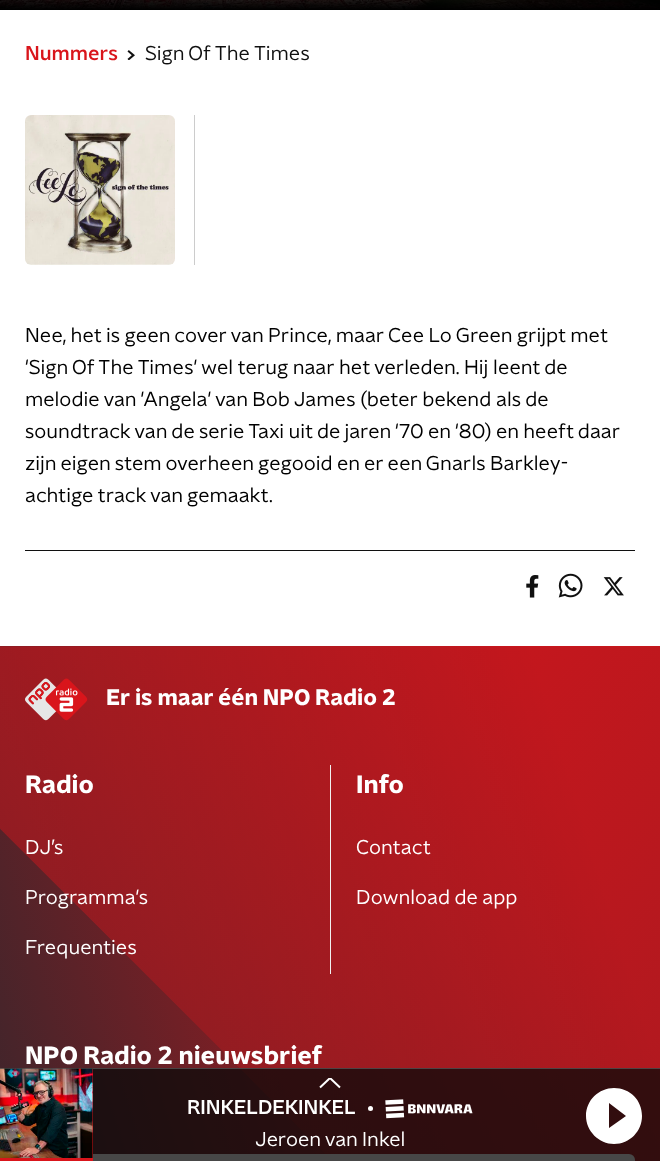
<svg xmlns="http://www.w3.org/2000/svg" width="660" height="1161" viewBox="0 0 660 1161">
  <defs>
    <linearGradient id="g1" gradientUnits="userSpaceOnUse" x1="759" y1="970" x2="-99" y2="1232"><stop offset="0.14" stop-color="#d9151b"/><stop offset="1" stop-color="#22282e"/></linearGradient>
    <clipPath id="clip1"><rect x="319" y="1078" width="22" height="11"/></clipPath>
  </defs>
  <rect width="100%" height="100%" fill="#ffffff"/>
  <image x="0" y="0" width="660" height="10" href="img1.png"/>
  <text x="25" y="60" font-family="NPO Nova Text" font-size="20" font-weight="500" fill="#d9151b">Nummers</text>
  <image x="127" y="50" width="8" height="10" href="img2.png"/>
  <text x="145" y="60" font-family="NPO Nova Text" font-size="20" fill="#101010">Sign Of The Times</text>
  <image x="25" y="115" width="150" height="150" href="img3.png"/>
  <rect x="194" y="115" width="1" height="150" fill="#cccccc"/>
  <text x="25" y="342" font-family="NPO Nova Text" font-size="20" fill="#000000">Nee, het is geen cover van Prince, maar Cee Lo Green grijpt met</text>
  <text x="25" y="374" font-family="NPO Nova Text" font-size="20" fill="#000000">'Sign Of The Times' wel terug naar het verleden.</text>
  <text x="464" y="374" font-family="NPO Nova Text" font-size="20" fill="#000000">Hij leent de</text>
  <text x="25" y="406" font-family="NPO Nova Text" font-size="20" fill="#000000">melodie van 'Angela' van Bob James (beter bekend als de</text>
  <text x="25" y="438" font-family="NPO Nova Text" font-size="20" fill="#000000">soundtrack van de serie Taxi uit de jaren '70 en '80) en heeft daar</text>
  <text x="25" y="470" font-family="NPO Nova Text" font-size="20" fill="#000000">zijn eigen stem overheen gegooid en er een Gnarls Barkley-</text>
  <text x="25" y="502" font-family="NPO Nova Text" font-size="20" fill="#000000">achtige track van gemaakt.</text>
  <rect x="25" y="550" width="610" height="1" fill="#101010"/>
  <image x="526" y="575" width="13" height="23" href="img4.png"/>
  <image x="558" y="573" width="25" height="25" href="img5.png"/>
  <image x="603" y="577" width="21" height="19" href="img6.png"/>
  <rect x="0" y="646" width="660" height="515" fill="url(#g1)"/>
  <image x="0" y="646" width="660" height="515" href="img7.png"/>
  <image x="25" y="678" width="63" height="43" href="img8.png"/>
  <text x="106" y="705" font-family="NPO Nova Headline" font-size="22.5" font-weight="bold" fill="#ffffff">Er is maar één NPO Radio 2</text>
  <rect x="330" y="765" width="1" height="209" fill="#f1f1f1"/>
  <text x="25" y="793" font-family="NPO Nova Headline" font-size="25" font-weight="bold" fill="#ffffff">Radio</text>
  <text x="25" y="854" font-family="NPO Nova Text" font-size="20" fill="#ffffff">DJ’s</text>
  <text x="25" y="904" font-family="NPO Nova Text" font-size="20" fill="#ffffff">Programma's</text>
  <text x="25" y="954" font-family="NPO Nova Text" font-size="20" fill="#ffffff">Frequenties</text>
  <text x="356" y="793" font-family="NPO Nova Headline" font-size="25" font-weight="bold" fill="#ffffff">Info</text>
  <text x="356" y="854" font-family="NPO Nova Text" font-size="20" fill="#ffffff">Contact</text>
  <text x="356" y="904" font-family="NPO Nova Text" font-size="20" fill="#ffffff">Download de app</text>
  <text x="25" y="1064" font-family="NPO Nova Headline" font-size="25" font-weight="bold" fill="#ffffff">NPO Radio 2 nieuwsbrief</text>
  <rect x="25" y="1154" width="610" height="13" rx="6" fill="#ffffff"/>
  <rect x="0" y="1068" width="660" height="93" fill="#090909" fill-opacity="0.75"/>
  <rect x="0" y="1068" width="660" height="1" fill="#5f5f5f" fill-opacity="0.65"/>
  <rect x="92" y="1069" width="1" height="89" fill="#d9151b"/>
  <image x="0" y="1068" width="93" height="90" href="img9.png"/>
  <rect x="0" y="1158" width="93" height="3" fill="#d9151b"/>
  <g clip-path="url(#clip1)">
    <path d="M340 1087.5L330 1078L320 1087.5" fill="none" stroke="#ffffff" stroke-width="2"/>
  </g>
  <text x="187" y="1114" font-family="NPO Nova Text" font-size="20" font-weight="500" fill="#ffffff">RINKELDEKINKEL</text>
  <circle cx="370.5" cy="1108.5" r="2.5" fill="#ffffff"/>
  <image x="385" y="1099" width="88" height="20" href="img10.png"/>
  <text x="255" y="1146" font-family="NPO Nova Text" font-size="20" fill="#ffffff">Jeroen van Inkel</text>
  <path d="M614 1088C599 1088 586 1100 586 1116C586 1131 599 1144 614 1144C630 1144 642 1131 642 1116C642 1100 630 1088 614 1088ZM609 1128V1103L626 1116Z" fill="#ffffff"/>
</svg>
